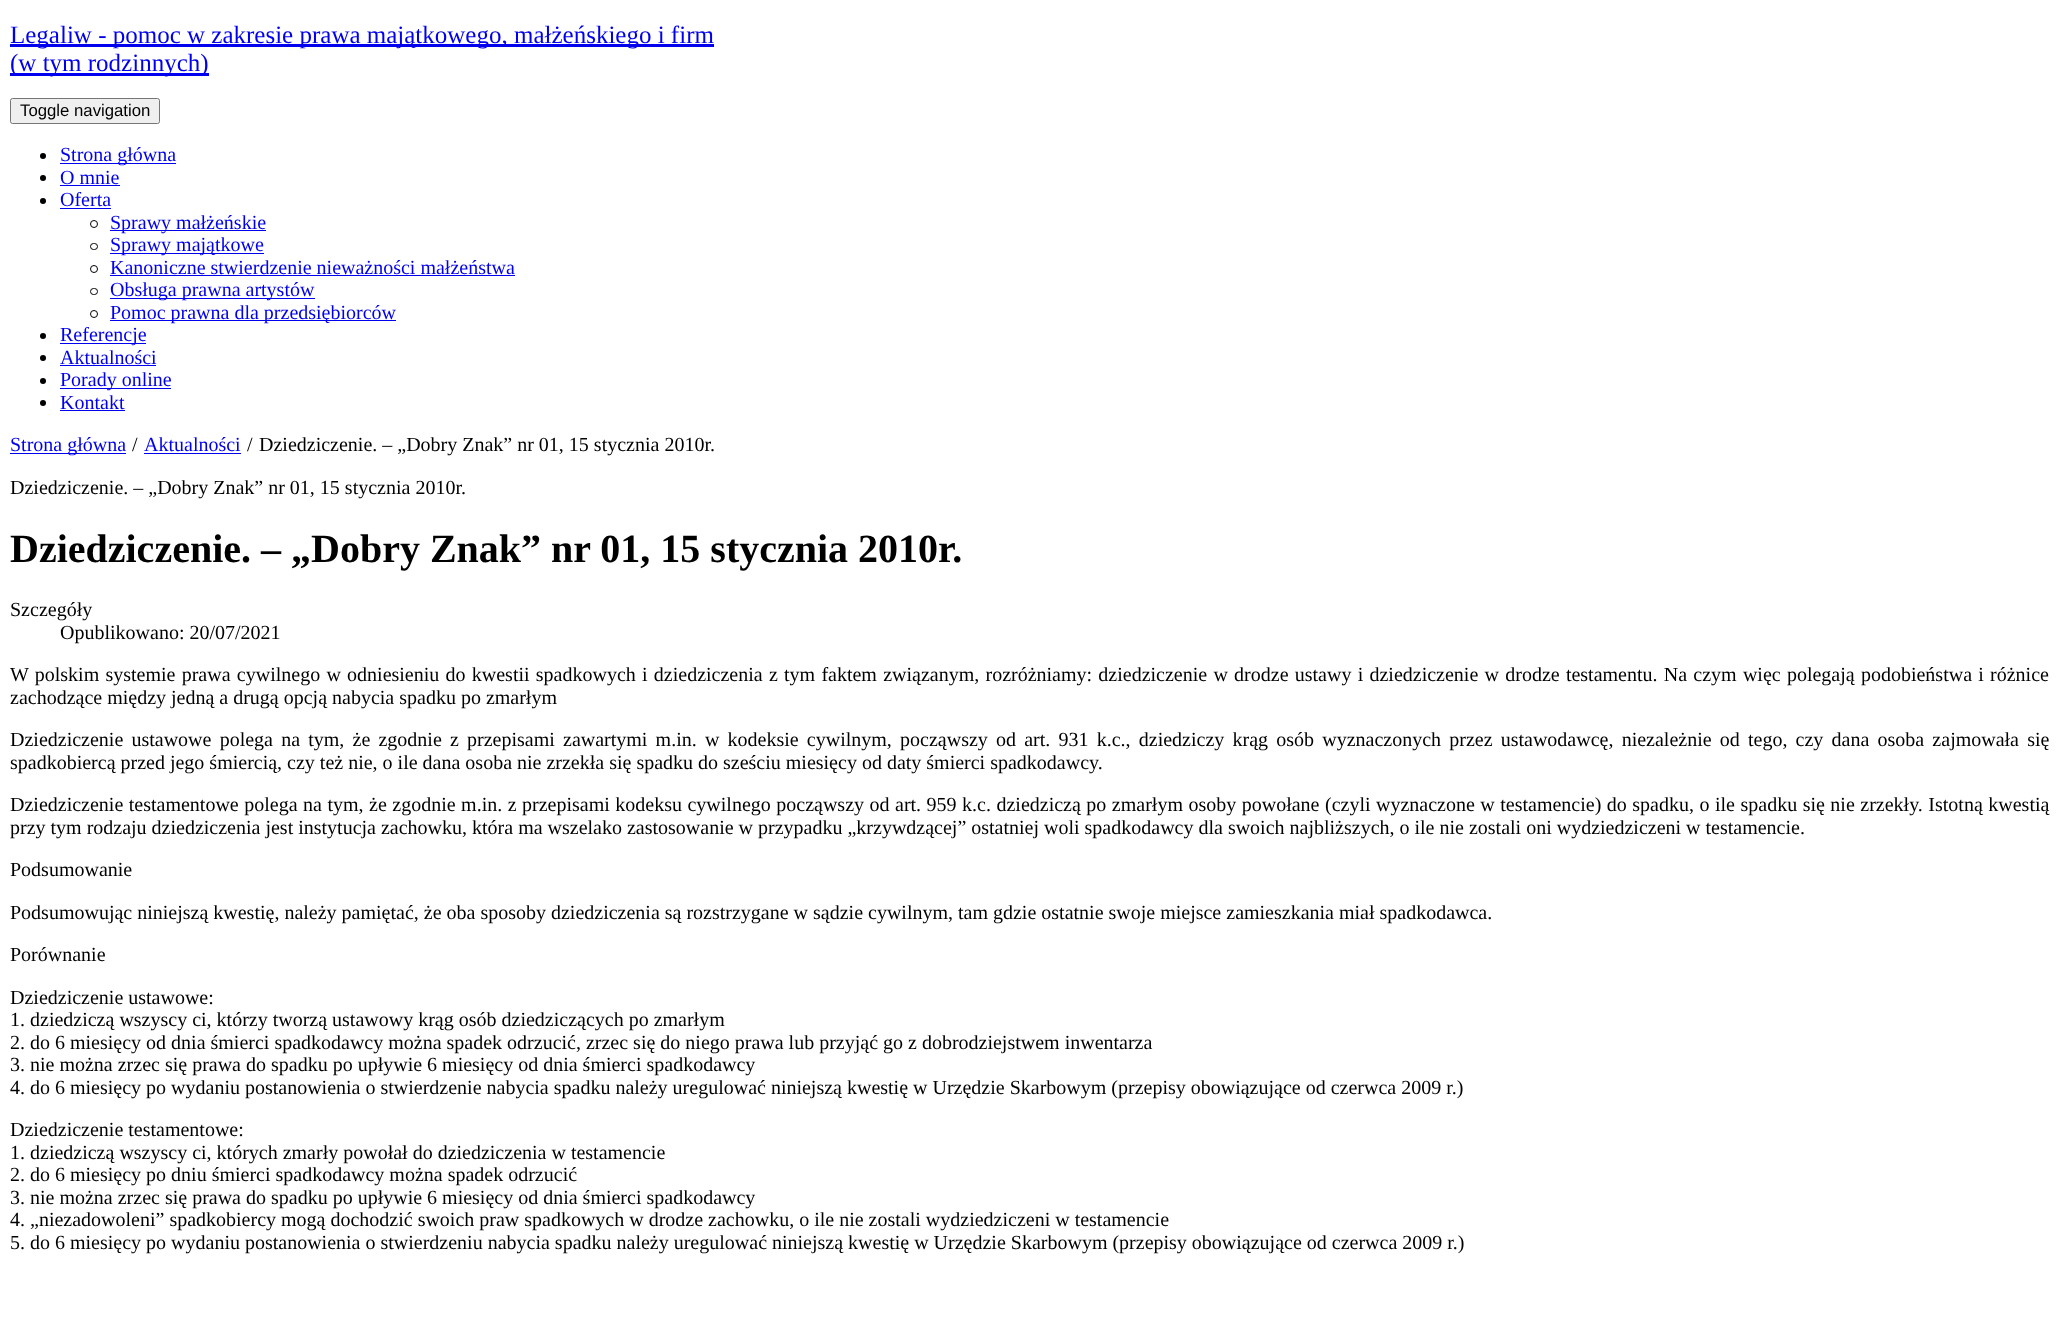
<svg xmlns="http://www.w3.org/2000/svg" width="2060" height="1328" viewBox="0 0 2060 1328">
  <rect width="100%" height="100%" fill="#ffffff"/>
  <rect x="10" y="44" width="704" height="3" fill="#0000ee"/>
  <text x="10" y="43" font-family="Liberation Serif" font-size="25" fill="#0000ee">Legaliw - pomoc w zakresie prawa majątkowego, małżeńskiego i firm</text>
  <rect x="10" y="73" width="199" height="3" fill="#0000ee"/>
  <text x="10" y="71" font-family="Liberation Serif" font-size="25" fill="#0000ee">(w tym rodzinnych)</text>
  <rect x="10.5" y="98.5" width="149" height="25" rx="2" fill="#efefef" stroke="#767676"/>
  <text x="20" y="116" font-family="Liberation Sans" font-size="16.75" fill="#000000">Toggle navigation</text>
  <circle cx="43" cy="156" r="3" fill="#000000"/>
  <rect x="60" y="163" width="116" height="1" fill="#0000ee"/>
  <text x="60" y="161" font-family="Liberation Serif" font-size="20" fill="#0000ee">Strona główna</text>
  <circle cx="43" cy="178" r="3" fill="#000000"/>
  <text x="60" y="184" font-family="Liberation Serif" font-size="20" fill="#0000ee">O mnie</text>
  <rect x="60" y="185" width="60" height="1" fill="#0000ee"/>
  <circle cx="43" cy="201" r="3" fill="#000000"/>
  <text x="60" y="206" font-family="Liberation Serif" font-size="20" fill="#0000ee">Oferta</text>
  <rect x="60" y="208" width="51" height="1" fill="#0000ee"/>
  <circle cx="94" cy="224" r="3.5" fill="none" stroke="#000000"/>
  <rect x="110" y="230" width="156" height="1" fill="#0000ee"/>
  <text x="110" y="229" font-family="Liberation Serif" font-size="20" fill="#0000ee">Sprawy małżeńskie</text>
  <rect x="90.5" y="243.5" width="7" height="6" rx="3" fill="none" stroke="#000000"/>
  <rect x="110" y="253" width="154" height="1" fill="#0000ee"/>
  <text x="110" y="251" font-family="Liberation Serif" font-size="20" fill="#0000ee">Sprawy majątkowe</text>
  <circle cx="94" cy="269" r="3.5" fill="none" stroke="#000000"/>
  <text x="110" y="274" font-family="Liberation Serif" font-size="20" fill="#0000ee">Kanoniczne stwierdzenie nieważności małżeństwa</text>
  <rect x="110" y="275" width="405" height="1" fill="#0000ee"/>
  <rect x="90.5" y="288.5" width="7" height="6" rx="3" fill="none" stroke="#000000"/>
  <rect x="110" y="298" width="205" height="1" fill="#0000ee"/>
  <text x="110" y="296" font-family="Liberation Serif" font-size="20" fill="#0000ee">Obsługa prawna artystów</text>
  <circle cx="94" cy="314" r="3.5" fill="none" stroke="#000000"/>
  <rect x="110" y="320" width="286" height="1" fill="#0000ee"/>
  <text x="110" y="319" font-family="Liberation Serif" font-size="20" fill="#0000ee">Pomoc prawna dla przedsiębiorców</text>
  <circle cx="43" cy="336" r="3" fill="#000000"/>
  <rect x="60" y="343" width="86" height="1" fill="#0000ee"/>
  <text x="60" y="341" font-family="Liberation Serif" font-size="20" fill="#0000ee">Referencje</text>
  <circle cx="43" cy="358" r="3" fill="#000000"/>
  <text x="60" y="364" font-family="Liberation Serif" font-size="20" fill="#0000ee">Aktualności</text>
  <rect x="60" y="365" width="96" height="1" fill="#0000ee"/>
  <circle cx="43" cy="381" r="3" fill="#000000"/>
  <rect x="60" y="388" width="111" height="1" fill="#0000ee"/>
  <text x="60" y="386" font-family="Liberation Serif" font-size="20" fill="#0000ee">Porady online</text>
  <circle cx="43" cy="403" r="3" fill="#000000"/>
  <text x="60" y="409" font-family="Liberation Serif" font-size="20" fill="#0000ee">Kontakt</text>
  <rect x="60" y="410" width="65" height="1" fill="#0000ee"/>
  <rect x="10" y="453" width="116" height="1" fill="#0000ee"/>
  <text x="10" y="451" font-family="Liberation Serif" font-size="20" fill="#0000ee">Strona główna</text>
  <text x="132" y="451" font-family="Liberation Serif" font-size="20" fill="#000000">/</text>
  <text x="144" y="451" font-family="Liberation Serif" font-size="20" fill="#0000ee">Aktualności</text>
  <rect x="144" y="453" width="97" height="1" fill="#0000ee"/>
  <text x="247" y="451" font-family="Liberation Serif" font-size="20" fill="#000000">/</text>
  <text x="259" y="451" font-family="Liberation Serif" font-size="20" fill="#000000">Dziedziczenie. – „Dobry Znak” nr 01, 15 stycznia 2010r.</text>
  <text x="10" y="494" font-family="Liberation Serif" font-size="20" fill="#000000">Dziedziczenie. – „Dobry Znak” nr 01, 15 stycznia 2010r.</text>
  <text x="10" y="562" font-family="Liberation Serif" font-size="40" font-weight="bold" fill="#000000">Dziedziczenie. – „Dobry Znak” nr 01, 15 stycznia 2010r.</text>
  <text x="10" y="616" font-family="Liberation Serif" font-size="20" fill="#000000">Szczegóły</text>
  <text x="60" y="639" font-family="Liberation Serif" font-size="20" fill="#000000">Opublikowano: 20/07/2021</text>
  <text x="10" y="681" word-spacing="1.25" font-family="Liberation Serif" font-size="20" fill="#000000">W polskim systemie prawa cywilnego w odniesieniu do kwestii spadkowych i dziedziczenia z tym faktem związanym, rozróżniamy: dziedziczenie w drodze ustawy i dziedziczenie w drodze testamentu. Na czym więc polegają podobieństwa i różnice</text>
  <text x="10" y="704" font-family="Liberation Serif" font-size="20" fill="#000000">zachodzące między jedną a drugą opcją nabycia spadku po zmarłym</text>
  <text x="10" y="746" word-spacing="3.2" font-family="Liberation Serif" font-size="20" fill="#000000">Dziedziczenie ustawowe polega na tym, że zgodnie z przepisami zawartymi m.in. w kodeksie cywilnym, począwszy od art. 931 k.c., dziedziczy krąg osób wyznaczonych przez ustawodawcę, niezależnie od tego, czy dana osoba zajmowała się</text>
  <text x="10" y="769" font-family="Liberation Serif" font-size="20" fill="#000000">spadkobiercą przed jego śmiercią, czy też nie, o ile dana osoba nie zrzekła się spadku do sześciu miesięcy od daty śmierci spadkodawcy.</text>
  <text x="10" y="811" word-spacing="0.5" font-family="Liberation Serif" font-size="20" fill="#000000">Dziedziczenie testamentowe polega na tym, że zgodnie m.in. z przepisami kodeksu cywilnego począwszy od art. 959 k.c. dziedziczą po zmarłym osoby powołane (czyli wyznaczone w testamencie) do spadku, o ile spadku się nie zrzekły. Istotną kwestią</text>
  <text x="10" y="834" font-family="Liberation Serif" font-size="20" fill="#000000">przy tym rodzaju dziedziczenia jest instytucja zachowku, która ma wszelako zastosowanie w przypadku „krzywdzącej” ostatniej woli spadkodawcy dla swoich najbliższych, o ile nie zostali oni wydziedziczeni w testamencie.</text>
  <text x="10" y="876" font-family="Liberation Serif" font-size="20" fill="#000000">Podsumowanie</text>
  <text x="10" y="919" font-family="Liberation Serif" font-size="20" fill="#000000">Podsumowując niniejszą kwestię, należy pamiętać, że oba sposoby dziedziczenia są rozstrzygane w sądzie cywilnym, tam gdzie ostatnie swoje miejsce zamieszkania miał spadkodawca.</text>
  <text x="10" y="961" font-family="Liberation Serif" font-size="20" fill="#000000">Porównanie</text>
  <text x="10" y="1004" font-family="Liberation Serif" font-size="20" fill="#000000">Dziedziczenie ustawowe:</text>
  <text x="10" y="1026" font-family="Liberation Serif" font-size="20" fill="#000000">1. dziedziczą wszyscy ci, którzy tworzą ustawowy krąg osób dziedziczących po zmarłym</text>
  <text x="10" y="1049" font-family="Liberation Serif" font-size="20" fill="#000000">2. do 6 miesięcy od dnia śmierci spadkodawcy można spadek odrzucić, zrzec się do niego prawa lub przyjąć go z dobrodziejstwem inwentarza</text>
  <text x="10" y="1071" font-family="Liberation Serif" font-size="20" fill="#000000">3. nie można zrzec się prawa do spadku po upływie 6 miesięcy od dnia śmierci spadkodawcy</text>
  <text x="10" y="1094" font-family="Liberation Serif" font-size="20" fill="#000000">4. do 6 miesięcy po wydaniu postanowienia o stwierdzenie nabycia spadku należy uregulować niniejszą kwestię w Urzędzie Skarbowym (przepisy obowiązujące od czerwca 2009 r.)</text>
  <text x="10" y="1136" font-family="Liberation Serif" font-size="20" fill="#000000">Dziedziczenie testamentowe:</text>
  <text x="10" y="1159" font-family="Liberation Serif" font-size="20" fill="#000000">1. dziedziczą wszyscy ci, których zmarły powołał do dziedziczenia w testamencie</text>
  <text x="10" y="1181" font-family="Liberation Serif" font-size="20" fill="#000000">2. do 6 miesięcy po dniu śmierci spadkodawcy można spadek odrzucić</text>
  <text x="10" y="1204" font-family="Liberation Serif" font-size="20" fill="#000000">3. nie można zrzec się prawa do spadku po upływie 6 miesięcy od dnia śmierci spadkodawcy</text>
  <text x="10" y="1226" font-family="Liberation Serif" font-size="20" fill="#000000">4. „niezadowoleni” spadkobiercy mogą dochodzić swoich praw spadkowych w drodze zachowku, o ile nie zostali wydziedziczeni w testamencie</text>
  <text x="10" y="1249" font-family="Liberation Serif" font-size="20" fill="#000000">5. do 6 miesięcy po wydaniu postanowienia o stwierdzeniu nabycia spadku należy uregulować niniejszą kwestię w Urzędzie Skarbowym (przepisy obowiązujące od czerwca 2009 r.)</text>
</svg>
